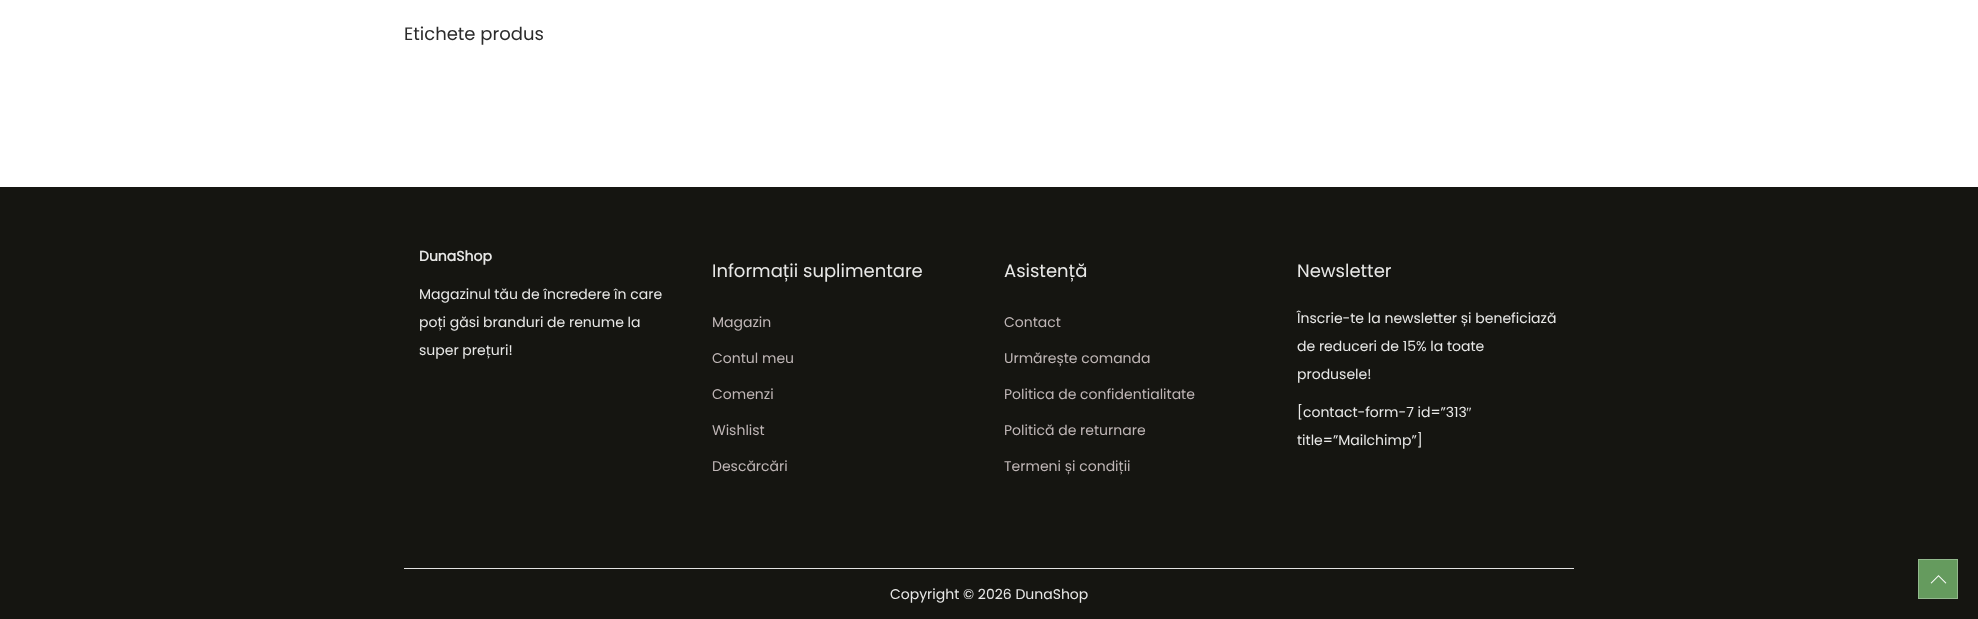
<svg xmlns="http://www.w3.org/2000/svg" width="1978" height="619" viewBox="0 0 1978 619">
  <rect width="100%" height="100%" fill="#ffffff"/>
  <text x="404" y="40" font-family="Poppins" font-size="18" fill="#2b2b2b">Etichete produs</text>
  <rect x="0" y="187" width="1978" height="432" fill="#151511"/>
  <text x="419" y="261" font-family="Poppins" font-size="14" font-weight="bold" fill="#e8e8e7">DunaShop</text>
  <text x="419" y="299" font-family="Poppins" font-size="14" fill="#e8e8e7">Magazinul tău de încredere în care</text>
  <text x="419" y="327" font-family="Poppins" font-size="14" fill="#e8e8e7">poți găsi branduri de renume la</text>
  <text x="419" y="355" font-family="Poppins" font-size="14" fill="#e8e8e7">super prețuri!</text>
  <text x="712" y="277" font-family="Poppins" font-size="18" fill="#e8e8e7">Informații suplimentare</text>
  <text x="712" y="327" font-family="Poppins" font-size="14" fill="#bfb6b6">Magazin</text>
  <text x="712" y="363" font-family="Poppins" font-size="14" fill="#bfb6b6">Contul meu</text>
  <text x="712" y="399" font-family="Poppins" font-size="14" fill="#bfb6b6">Comenzi</text>
  <text x="712" y="435" font-family="Poppins" font-size="14" fill="#bfb6b6">Wishlist</text>
  <text x="712" y="471" font-family="Poppins" font-size="14" fill="#bfb6b6">Descărcări</text>
  <text x="1004" y="277" font-family="Poppins" font-size="18" fill="#e8e8e7">Asistență</text>
  <text x="1004" y="327" font-family="Poppins" font-size="14" fill="#bfb6b6">Contact</text>
  <text x="1004" y="363" font-family="Poppins" font-size="14" fill="#bfb6b6">Urmărește comanda</text>
  <text x="1004" y="399" font-family="Poppins" font-size="14" fill="#bfb6b6">Politica de confidentialitate</text>
  <text x="1004" y="435" font-family="Poppins" font-size="14" fill="#bfb6b6">Politică de returnare</text>
  <text x="1004" y="471" font-family="Poppins" font-size="14" fill="#bfb6b6">Termeni și condiții</text>
  <text x="1297" y="277" font-family="Poppins" font-size="18" fill="#e8e8e7">Newsletter</text>
  <text x="1297" y="323" font-family="Poppins" font-size="14" fill="#e8e8e7">Înscrie-te la newsletter și beneficiază</text>
  <text x="1297" y="351" font-family="Poppins" font-size="14" fill="#e8e8e7">de reduceri de 15% la toate</text>
  <text x="1297" y="379" font-family="Poppins" font-size="14" fill="#e8e8e7">produsele!</text>
  <text x="1297" y="417" font-family="Poppins" font-size="14" fill="#e8e8e7">[contact-form-7 id=”313</text>
  <text x="1466" y="417" font-family="Liberation Serif" font-size="14" fill="#e8e8e7">″</text>
  <text x="1297" y="445" font-family="Poppins" font-size="14" fill="#e8e8e7">title=”Mailchimp”]</text>
  <rect x="404" y="568" width="1170" height="1" fill="#e3e3e3"/>
  <text x="890" y="599" font-family="Poppins" font-size="14" fill="#e8e8e7">Copyright © 2026 DunaShop</text>
  <rect x="1918.5" y="559.5" width="39" height="39" fill="#659b5e" stroke="#93b98e"/>
  <image x="1930" y="575" width="17" height="9" href="img1.png"/>
</svg>
